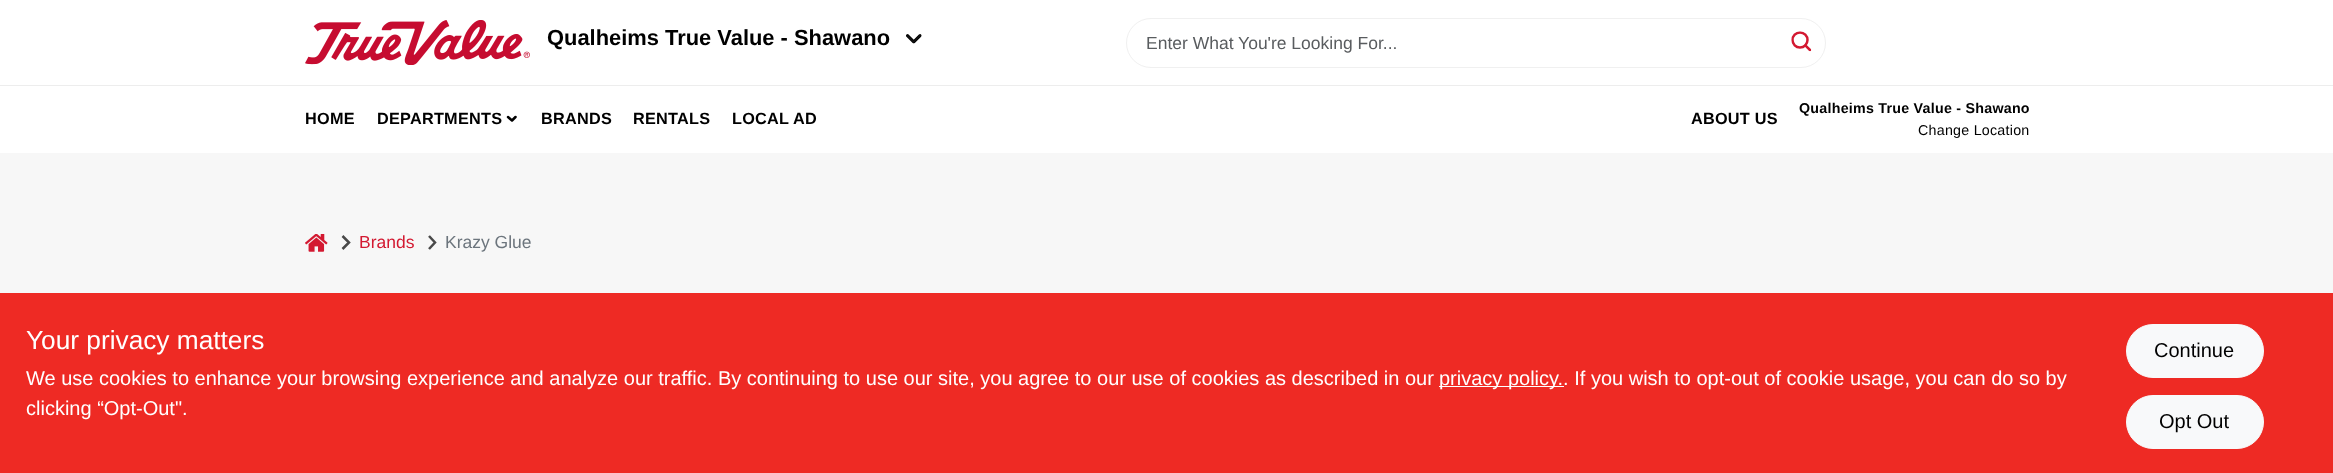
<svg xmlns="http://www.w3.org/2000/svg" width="2333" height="473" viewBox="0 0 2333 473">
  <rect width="100%" height="100%" fill="#f7f7f7"/>
  <rect x="0" y="0" width="2333" height="85" fill="#ffffff"/>
  <image x="305" y="20" width="225" height="45" href="img1.png"/>
  <text x="547" y="45" font-family="Liberation Sans" font-size="21.9" font-weight="bold" fill="#000000">Qualheims True Value - Shawano</text>
  <image x="906" y="34" width="16" height="10" href="img2.png"/>
  <rect x="1126.5" y="18.5" width="699" height="49" rx="24.5" fill="none" stroke="#f0f0f0"/>
  <text x="1146" y="49" font-family="Liberation Sans" font-size="17.5" fill="#595c5f">Enter What You're Looking For...</text>
  <image x="1791" y="31" width="21" height="21" href="img3.png"/>
  <rect x="0" y="86" width="2333" height="67" fill="#ffffff"/>
  <rect x="0" y="85" width="2333" height="1" fill="#ededed"/>
  <text x="305" y="124" font-family="Liberation Sans" font-size="16.25" font-weight="bold" letter-spacing="0.25" fill="#000000">HOME</text>
  <text x="377" y="124" font-family="Liberation Sans" font-size="16.25" font-weight="bold" letter-spacing="0.25" fill="#000000">DEPARTMENTS</text>
  <path d="M515.5 117L512 120.5L508 117" fill="none" stroke="#000000" stroke-width="2.5" stroke-linecap="round" stroke-linejoin="round"/>
  <text x="541" y="124" font-family="Liberation Sans" font-size="16.25" font-weight="bold" letter-spacing="0.25" fill="#000000">BRANDS</text>
  <text x="633" y="124" font-family="Liberation Sans" font-size="16.25" font-weight="bold" letter-spacing="0.25" fill="#000000">RENTALS</text>
  <text x="732" y="124" font-family="Liberation Sans" font-size="16.25" font-weight="bold" letter-spacing="0.25" fill="#000000">LOCAL AD</text>
  <text x="1691" y="124" font-family="Liberation Sans" font-size="16.25" font-weight="bold" letter-spacing="0.25" fill="#000000">ABOUT US</text>
  <text x="1799" y="113" font-family="Liberation Sans" font-size="14.25" font-weight="bold" letter-spacing="0.25" fill="#000000">Qualheims True Value - Shawano</text>
  <text x="1918" y="135" font-family="Liberation Sans" font-size="14.25" letter-spacing="0.25" fill="#000000">Change Location</text>
  <image x="305" y="234" width="23" height="18" href="img4.png"/>
  <path d="M342.5 236L349 242.5L342.5 249" fill="none" stroke="#494949" stroke-width="2.5"/>
  <text x="359" y="248" font-family="Liberation Sans" font-size="17.5" fill="#d31931">Brands</text>
  <path d="M429 236L435 242.5L429 249" fill="none" stroke="#494949" stroke-width="2.5"/>
  <text x="445" y="248" font-family="Liberation Sans" font-size="17.5" fill="#6c757d">Krazy Glue</text>
  <rect x="0" y="293" width="2333" height="180" fill="#ee2a24"/>
  <text x="26" y="349" font-family="Liberation Sans" font-size="26.25" fill="#ffffff">Your privacy matters</text>
  <text x="26" y="385" font-family="Liberation Sans" font-size="20" fill="#ffffff">We use cookies to enhance your browsing experience and analyze our traffic. By continuing to use our site, you agree to our use of cookies as described in our</text>
  <rect x="1439" y="386" width="125" height="1" fill="#ffffff"/>
  <text x="1439" y="385" font-family="Liberation Sans" font-size="20" fill="#ffffff">privacy policy.. If you wish to opt-out of cookie usage, you can do so by</text>
  <text x="26" y="415" font-family="Liberation Sans" font-size="20" fill="#ffffff">clicking “Opt-Out".</text>
  <rect x="2126.5" y="324.5" width="137" height="53" rx="26.5" fill="#f8f9fa" stroke="#f8f9fa"/>
  <text x="2154" y="357" font-family="Liberation Sans" font-size="20" fill="#000000">Continue</text>
  <rect x="2126.5" y="395.5" width="137" height="53" rx="26.5" fill="#f8f9fa" stroke="#f8f9fa"/>
  <text x="2159" y="428" font-family="Liberation Sans" font-size="20" fill="#000000">Opt Out</text>
</svg>
